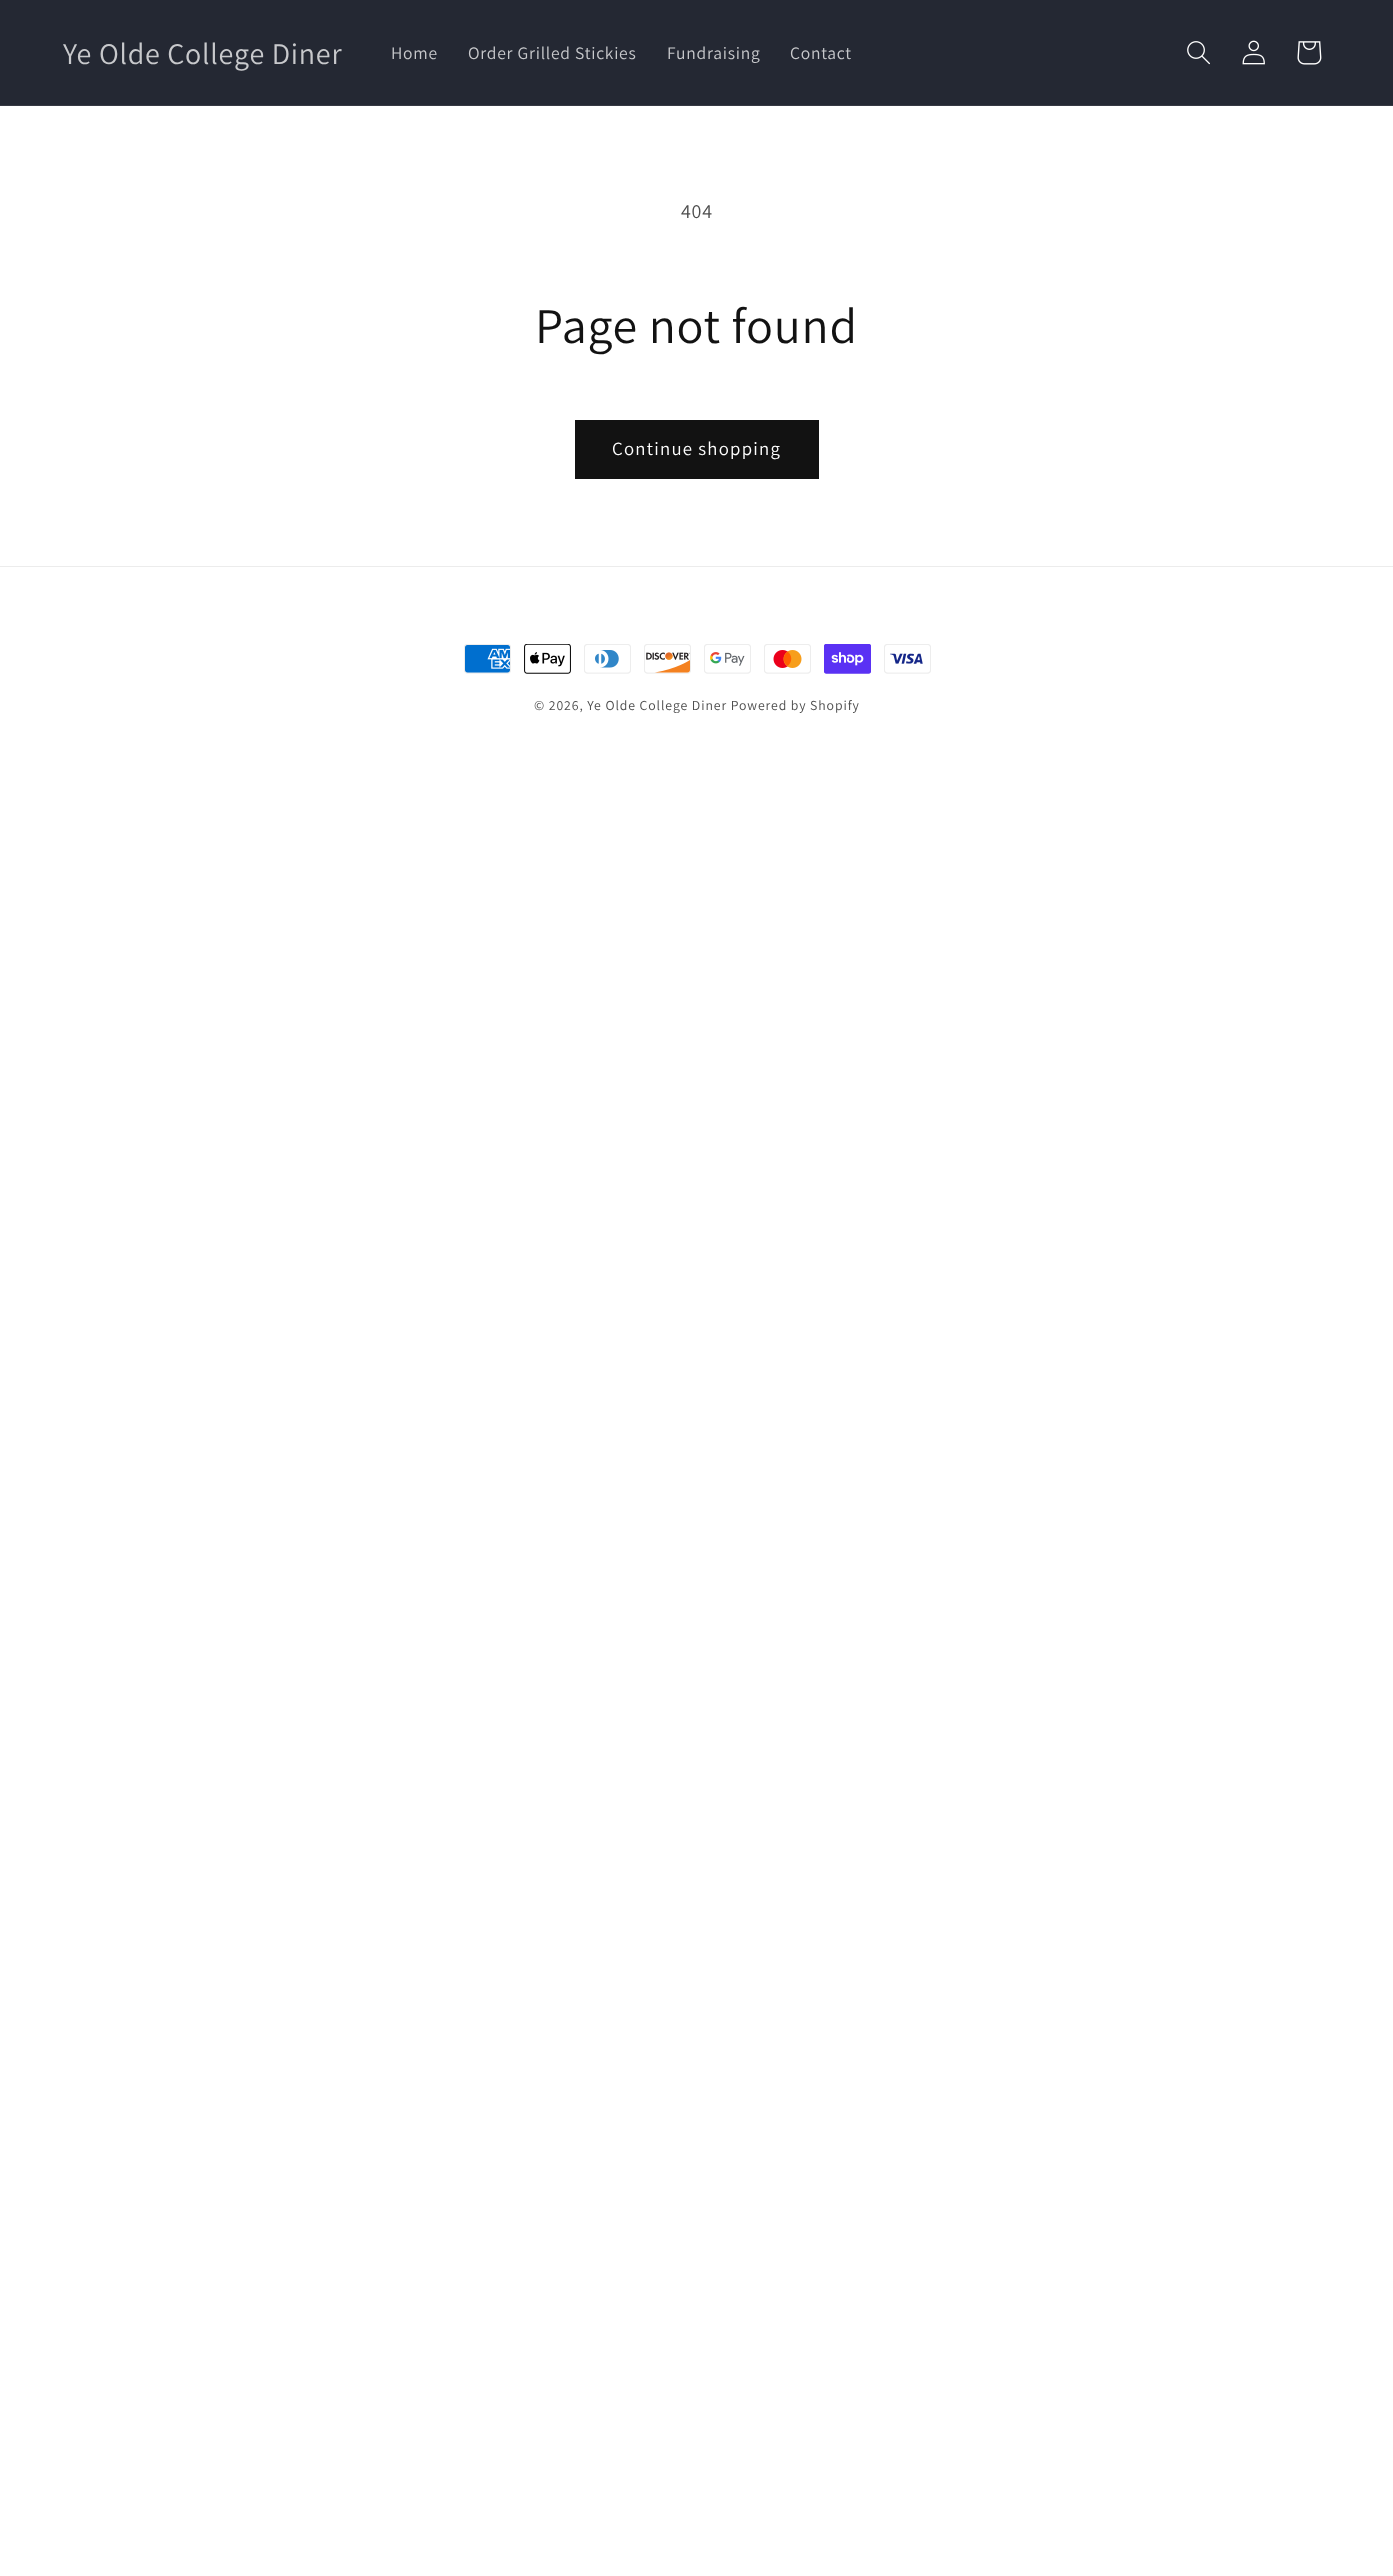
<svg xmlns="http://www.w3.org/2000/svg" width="1393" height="2576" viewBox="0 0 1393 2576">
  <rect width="100%" height="100%" fill="#ffffff"/>
  <rect x="0" y="0" width="1393" height="105" fill="#242833"/>
  <rect x="0" y="105" width="1393" height="1" fill="#363943"/>
  <text x="63" y="64" font-family="Assistant" font-size="30" letter-spacing="0.75" fill="#c8c9cc">Ye Olde College Diner</text>
  <text x="391" y="59" font-family="Assistant" font-size="17.5" letter-spacing="0.75" fill="#c8c9cc">Home</text>
  <text x="468" y="59" font-family="Assistant" font-size="17.5" letter-spacing="0.75" fill="#c8c9cc">Order Grilled Stickies</text>
  <text x="667" y="59" font-family="Assistant" font-size="17.5" letter-spacing="0.75" fill="#c8c9cc">Fundraising</text>
  <text x="790" y="59" font-family="Assistant" font-size="17.5" letter-spacing="0.75" fill="#c8c9cc">Contact</text>
  <image x="1187" y="41" width="23" height="24" href="img1.png"/>
  <image x="1242" y="40" width="23" height="25" href="img2.png"/>
  <image x="1297" y="41" width="25" height="24" href="img3.png"/>
  <text x="681" y="218" font-family="Assistant" font-size="20" letter-spacing="0.75" fill="#4d4d4d">404</text>
  <text x="535" y="343" font-family="Assistant" font-size="50" letter-spacing="0.75" fill="#121212">Page not found</text>
  <rect x="575" y="420" width="244" height="59" fill="#121212"/>
  <text x="612" y="455" font-family="Assistant" font-size="18.75" letter-spacing="1.25" fill="#ffffff">Continue shopping</text>
  <rect x="0" y="566" width="1393" height="1" fill="#ececec"/>
  <image x="464" y="644" width="47" height="30" href="img4.png"/>
  <image x="524" y="644" width="47" height="30" href="img5.png"/>
  <image x="584" y="644" width="47" height="30" href="img6.png"/>
  <image x="644" y="644" width="47" height="30" href="img7.png"/>
  <image x="704" y="644" width="47" height="30" href="img8.png"/>
  <image x="764" y="644" width="47" height="30" href="img9.png"/>
  <image x="824" y="644" width="47" height="30" href="img10.png"/>
  <image x="884" y="644" width="47" height="30" href="img11.png"/>
  <text x="534" y="710" font-family="Assistant" font-size="13.75" letter-spacing="0.9" fill="#4d4d4d">© 2026, Ye Olde College Diner Powered by Shopify</text>
</svg>
